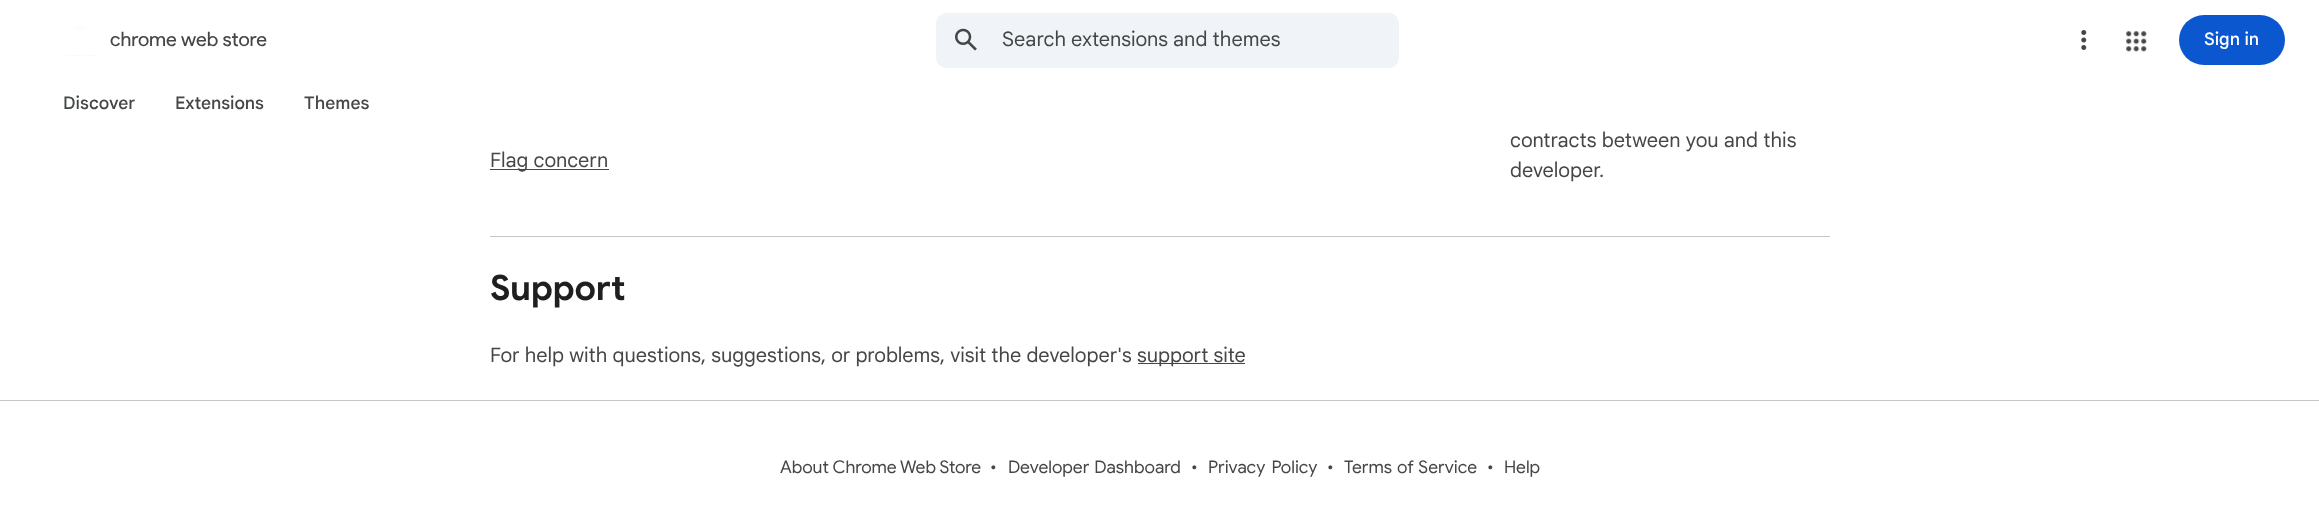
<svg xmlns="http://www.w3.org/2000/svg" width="2319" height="531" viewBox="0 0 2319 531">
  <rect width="100%" height="100%" fill="#ffffff"/>
  <image x="63" y="27" width="34" height="29" href="img1.png"/>
  <text x="110" y="46" font-family="Product Sans" font-size="20" fill="#444746">chrome web store</text>
  <rect x="936" y="13" width="463" height="55" rx="10" fill="#f0f4f9"/>
  <image x="955" y="28" width="22" height="23" href="img2.png"/>
  <text x="1002" y="46" font-family="'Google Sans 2'" font-size="20" fill="#444746">Search extensions and themes</text>
  <image x="2081" y="30" width="6" height="20" href="img3.png"/>
  <image x="2126" y="31" width="21" height="21" href="img4.png"/>
  <rect x="2179" y="15" width="106" height="50" rx="25" fill="#0b57d0"/>
  <text x="2204" y="45" font-family="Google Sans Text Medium" font-size="17.5" font-weight="500" fill="#ffffff">Sign in</text>
  <text x="63" y="109" font-family="Google Sans Text Medium" font-size="17.5" font-weight="500" fill="#444746">Discover</text>
  <text x="175" y="109" font-family="Google Sans Text Medium" font-size="17.5" font-weight="500" fill="#444746">Extensions</text>
  <text x="304" y="109" font-family="Google Sans Text Medium" font-size="17.5" font-weight="500" fill="#444746">Themes</text>
  <rect x="490" y="236" width="1340" height="1" fill="#c4c7c5"/>
  <rect x="490" y="169" width="119" height="1" fill="#444746"/>
  <text x="490" y="167" font-family="'Google Sans 2'" font-size="20" fill="#444746">Flag concern</text>
  <text x="1510" y="147" font-family="'Google Sans 2'" font-size="20" fill="#444746">contracts between you and this</text>
  <text x="1510" y="177" font-family="'Google Sans 2'" font-size="20" fill="#444746">developer.</text>
  <text x="490" y="300" font-family="Google Sans" font-size="35" font-weight="bold" fill="#1f1f1f">Support</text>
  <text x="490" y="362" font-family="'Google Sans 2'" font-size="20" fill="#444746">For help with questions, suggestions, or problems, visit the developer's</text>
  <rect x="1138" y="363" width="107" height="1" fill="#444746"/>
  <text x="1137" y="362" font-family="'Google Sans 2'" font-size="20" fill="#444746">support site</text>
  <rect x="0" y="400" width="2319" height="1" fill="#c4c7c5"/>
  <text x="780" y="473" font-family="Google Sans" font-size="17.5" fill="#444746">About Chrome Web Store</text>
  <text x="990" y="473" font-family="Google Sans" font-size="17.5" fill="#444746">•</text>
  <text x="1008" y="473" word-spacing="1" font-family="Google Sans" font-size="17.5" fill="#444746">Developer Dashboard</text>
  <text x="1191" y="473" font-family="Google Sans" font-size="17.5" fill="#444746">•</text>
  <text x="1208" y="473" word-spacing="2" font-family="Google Sans" font-size="17.5" fill="#444746">Privacy Policy</text>
  <text x="1327" y="473" font-family="Google Sans" font-size="17.5" fill="#444746">•</text>
  <text x="1344" y="473" word-spacing="1" font-family="Google Sans" font-size="17.5" fill="#444746">Terms of Service</text>
  <text x="1487" y="473" font-family="Google Sans" font-size="17.5" fill="#444746">•</text>
  <text x="1504" y="473" font-family="Google Sans" font-size="17.5" fill="#444746">Help</text>
</svg>
